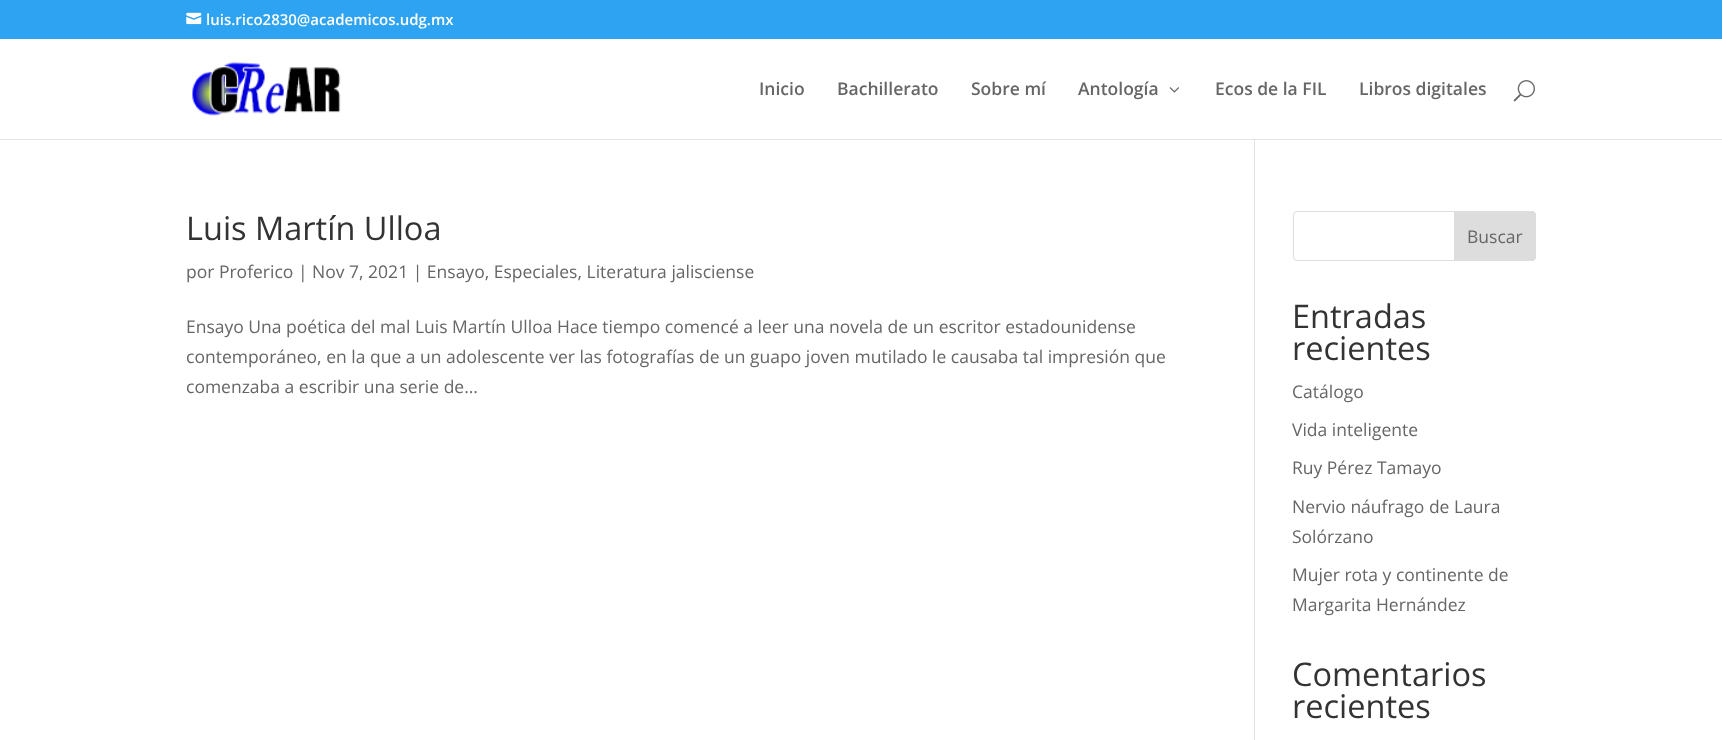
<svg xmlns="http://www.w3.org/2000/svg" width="1722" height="740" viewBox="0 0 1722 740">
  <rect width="100%" height="100%" fill="#ffffff"/>
  <rect x="0" y="0" width="1722" height="39" fill="#2ea3f2"/>
  <image x="186" y="12" width="16" height="13" href="img1.png"/>
  <text x="206" y="25" font-family="Open Sans" font-size="15" font-weight="600" fill="#ffffff">luis.rico2830@academicos.udg.mx</text>
  <rect x="1254" y="139" width="1" height="601" fill="#e2e2e2"/>
  <path d="M0 139V140H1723V40H1722V139Z" fill="#000000" fill-opacity="0.1"/>
  <image x="192" y="62" width="149" height="54" href="img2.png"/>
  <text x="759" y="95" font-family="Open Sans" font-size="17.5" font-weight="600" fill="#666666">Inicio</text>
  <text x="837" y="95" font-family="Open Sans" font-size="17.5" font-weight="600" fill="#666666">Bachillerato</text>
  <text x="971" y="95" font-family="Open Sans" font-size="17.5" font-weight="600" fill="#666666">Sobre mí</text>
  <text x="1078" y="95" font-family="Open Sans" font-size="17.5" font-weight="600" fill="#666666">Antología</text>
  <image x="1169" y="87" width="10" height="6" href="img3.png"/>
  <text x="1215" y="95" font-family="Open Sans" font-size="17.5" font-weight="600" fill="#666666">Ecos de la FIL</text>
  <text x="1359" y="95" font-family="Open Sans" font-size="17.5" font-weight="600" fill="#666666">Libros digitales</text>
  <image x="1513" y="80" width="22" height="22" href="img4.png"/>
  <text x="186" y="240" font-family="Open Sans" font-size="32.5" fill="#333333">Luis Martín Ulloa</text>
  <text x="186" y="278" font-family="Open Sans" font-size="17.5" fill="#666666">por Proferico | Nov 7, 2021 | Ensayo, Especiales, Literatura jalisciense</text>
  <text x="186" y="333" font-family="Open Sans" font-size="17.5" fill="#666666">Ensayo Una poética del mal Luis Martín Ulloa Hace tiempo comencé a leer una novela de un escritor estadounidense</text>
  <text x="186" y="363" font-family="Open Sans" font-size="17.5" fill="#666666">contemporáneo, en la que a un adolescente ver las fotografías de un guapo joven mutilado le causaba tal impresión que</text>
  <text x="186" y="393" font-family="Open Sans" font-size="17.5" fill="#666666">comenzaba a escribir una serie de...</text>
  <rect x="1293.5" y="211.5" width="242" height="49" rx="3.5" fill="none" stroke="#dddddd"/>
  <path d="M1454.5 211.5H1532C1534 211.5 1535.5 213 1535.5 215V257C1535.5 259 1534 260.5 1532 260.5H1454.5Z" fill="#dddddd" stroke="#dddddd"/>
  <text x="1467" y="243" font-family="Open Sans" font-size="17.5" fill="#666666">Buscar</text>
  <text x="1292" y="328" font-family="Open Sans" font-size="32.5" fill="#333333">Entradas</text>
  <text x="1292" y="360" font-family="Open Sans" font-size="32.5" fill="#333333">recientes</text>
  <text x="1292" y="398" font-family="Open Sans" font-size="17.5" fill="#666666">Catálogo</text>
  <text x="1292" y="436" font-family="Open Sans" font-size="17.5" fill="#666666">Vida inteligente</text>
  <text x="1292" y="474" font-family="Open Sans" font-size="17.5" fill="#666666">Ruy Pérez Tamayo</text>
  <text x="1292" y="513" font-family="Open Sans" font-size="17.5" fill="#666666">Nervio náufrago de Laura</text>
  <text x="1292" y="543" font-family="Open Sans" font-size="17.5" fill="#666666">Solórzano</text>
  <text x="1292" y="581" font-family="Open Sans" font-size="17.5" fill="#666666">Mujer rota y continente de</text>
  <text x="1292" y="611" font-family="Open Sans" font-size="17.5" fill="#666666">Margarita Hernández</text>
  <text x="1292" y="686" font-family="Open Sans" font-size="32.5" fill="#333333">Comentarios</text>
  <text x="1292" y="718" font-family="Open Sans" font-size="32.5" fill="#333333">recientes</text>
</svg>
